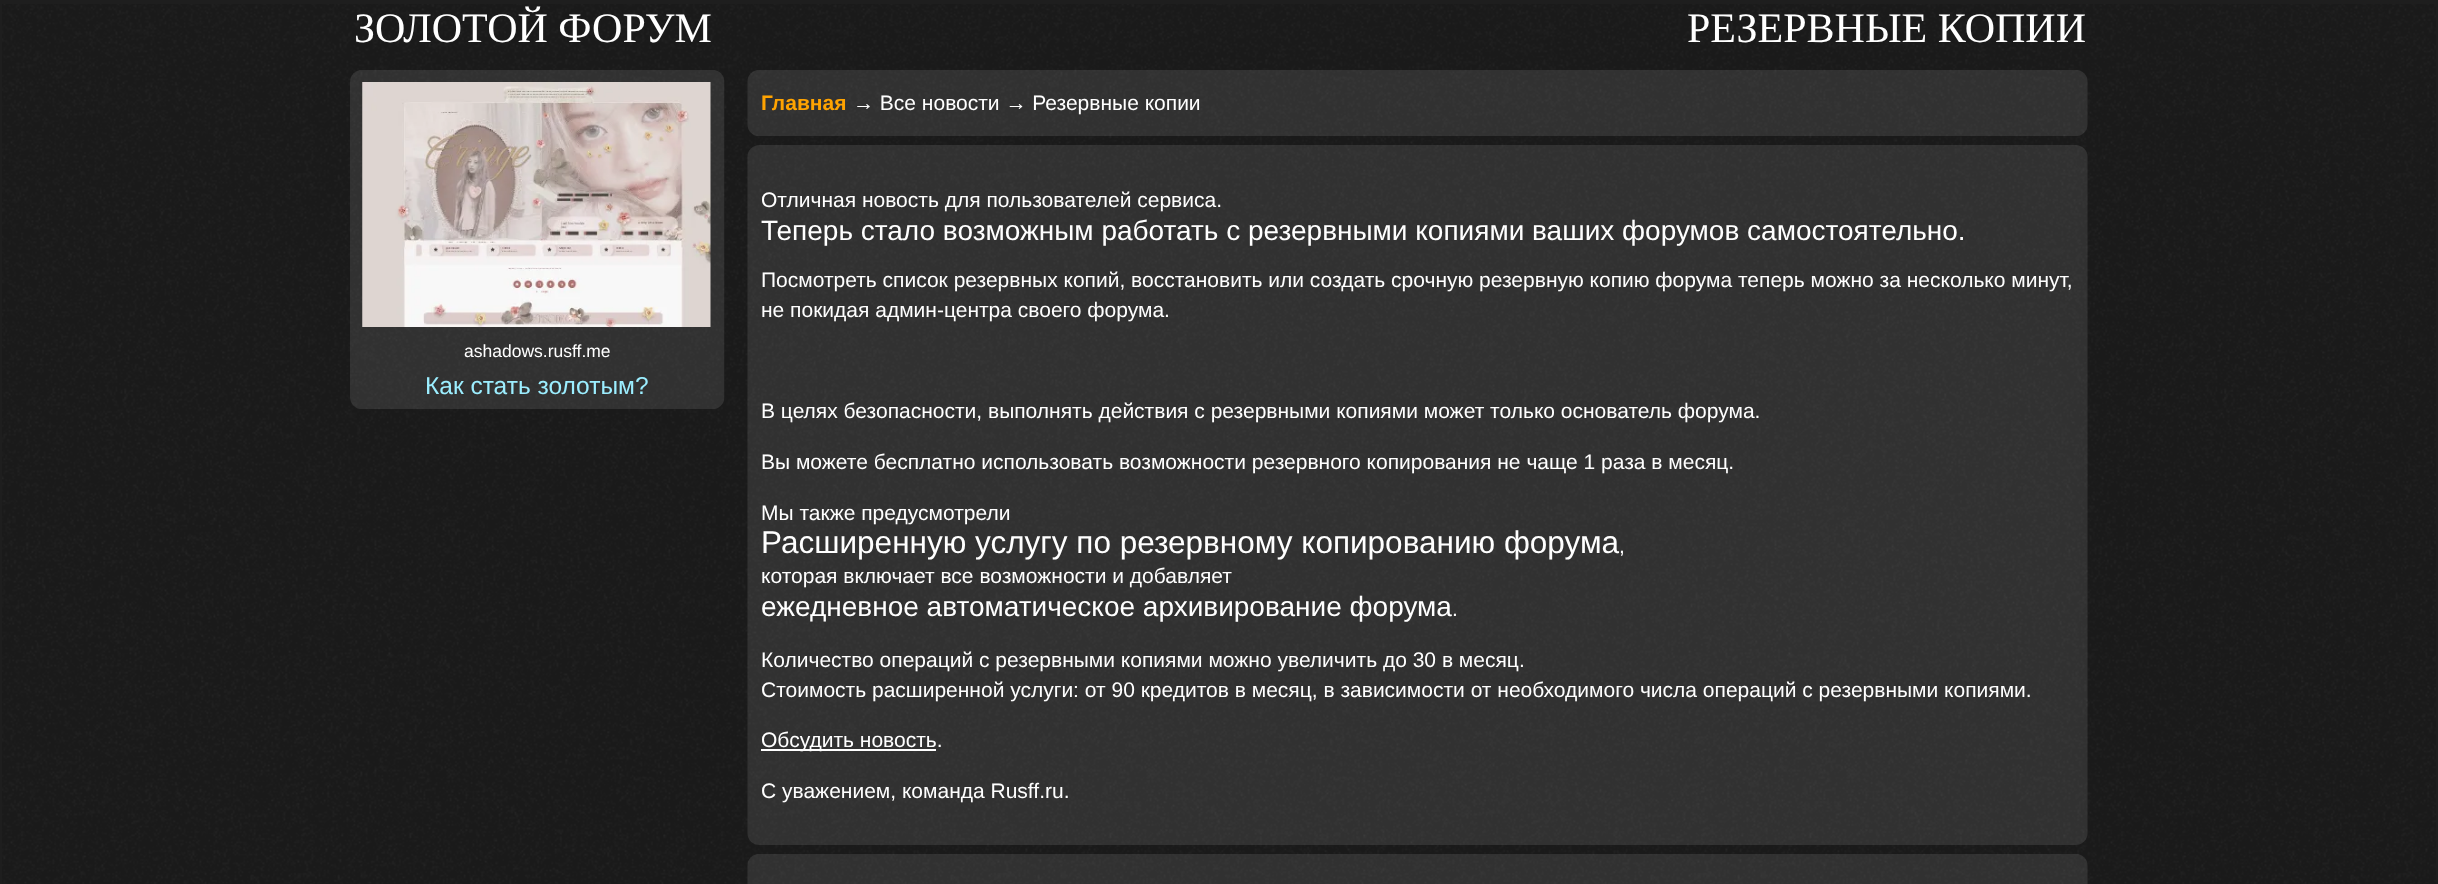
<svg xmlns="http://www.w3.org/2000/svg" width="2438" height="884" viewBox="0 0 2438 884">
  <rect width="100%" height="100%" fill="#1e1e1e"/>
  <image x="2" y="4" width="2434" height="880" href="img1.png"/>
  <text x="354" y="42" font-family="Liberation Serif" font-size="42" fill="#ffffff">ЗОЛОТОЙ ФОРУМ</text>
  <image x="350" y="70" width="375" height="339" href="img2.png"/>
  <image x="362" y="82" width="349" height="245" href="img3.png"/>
  <text x="464" y="357" font-family="Liberation Sans" font-size="17.5" fill="#ffffff">ashadows.rusff.me</text>
  <text x="425" y="394" font-family="Liberation Sans" font-size="24.5" fill="#9ceeff">Как стать золотым?</text>
  <text x="1687" y="42" font-family="Liberation Serif" font-size="42" fill="#ffffff">РЕЗЕРВНЫЕ КОПИИ</text>
  <image x="747" y="70" width="1341" height="66" href="img4.png"/>
  <text x="761" y="110" font-family="Liberation Sans" font-size="21" font-weight="bold" fill="#ffa301">Главная</text>
  <text x="853" y="110" font-family="Liberation Sans" font-size="21" fill="#ffffff">→ Все новости → Резервные копии</text>
  <image x="747" y="145" width="1341" height="700" href="img5.png"/>
  <text x="761" y="207" font-family="Liberation Sans" font-size="21" fill="#ffffff">Отличная новость для пользователей сервиса.</text>
  <text x="761" y="240" font-family="Liberation Sans" font-size="28" fill="#ffffff">Теперь стало возможным работать с резервными копиями ваших форумов самостоятельно.</text>
  <text x="761" y="287" font-family="Liberation Sans" font-size="21" fill="#ffffff">Посмотреть список резервных копий, восстановить или создать срочную резервную копию форума теперь можно за несколько минут,</text>
  <text x="761" y="317" font-family="Liberation Sans" font-size="21" fill="#ffffff">не покидая админ-центра своего форума.</text>
  <text x="761" y="418" font-family="Liberation Sans" font-size="21" fill="#ffffff">В целях безопасности, выполнять действия с резервными копиями может только основатель форума.</text>
  <text x="761" y="469" font-family="Liberation Sans" font-size="21" fill="#ffffff">Вы можете бесплатно использовать возможности резервного копирования не чаще 1 раза в месяц.</text>
  <text x="761" y="520" font-family="Liberation Sans" font-size="21" fill="#ffffff">Мы также предусмотрели</text>
  <text x="761" y="553" font-family="Liberation Sans" font-size="31.5" fill="#ffffff">Расширенную услугу по резервному копированию форума</text>
  <text x="1619" y="553" font-family="Liberation Sans" font-size="21" fill="#ffffff">,</text>
  <text x="761" y="583" font-family="Liberation Sans" font-size="21" fill="#ffffff">которая включает все возможности и добавляет</text>
  <text x="761" y="616" font-family="Liberation Sans" font-size="28" fill="#ffffff">ежедневное автоматическое архивирование форума</text>
  <text x="1452" y="616" font-family="Liberation Sans" font-size="21" fill="#ffffff">.</text>
  <text x="761" y="667" font-family="Liberation Sans" font-size="21" fill="#ffffff">Количество операций с резервными копиями можно увеличить до 30 в месяц.</text>
  <text x="761" y="697" font-family="Liberation Sans" font-size="21" fill="#ffffff">Стоимость расширенной услуги: от 90 кредитов в месяц, в зависимости от необходимого числа операций с резервными копиями.</text>
  <rect x="761" y="749" width="175" height="2" fill="#ffffff"/>
  <text x="761" y="747" font-family="Liberation Sans" font-size="21" fill="#ffffff">Обсудить новость.</text>
  <text x="761" y="798" font-family="Liberation Sans" font-size="21" fill="#ffffff">С уважением, команда Rusff.ru.</text>
  <image x="747" y="854" width="1341" height="30" href="img6.png"/>
</svg>
